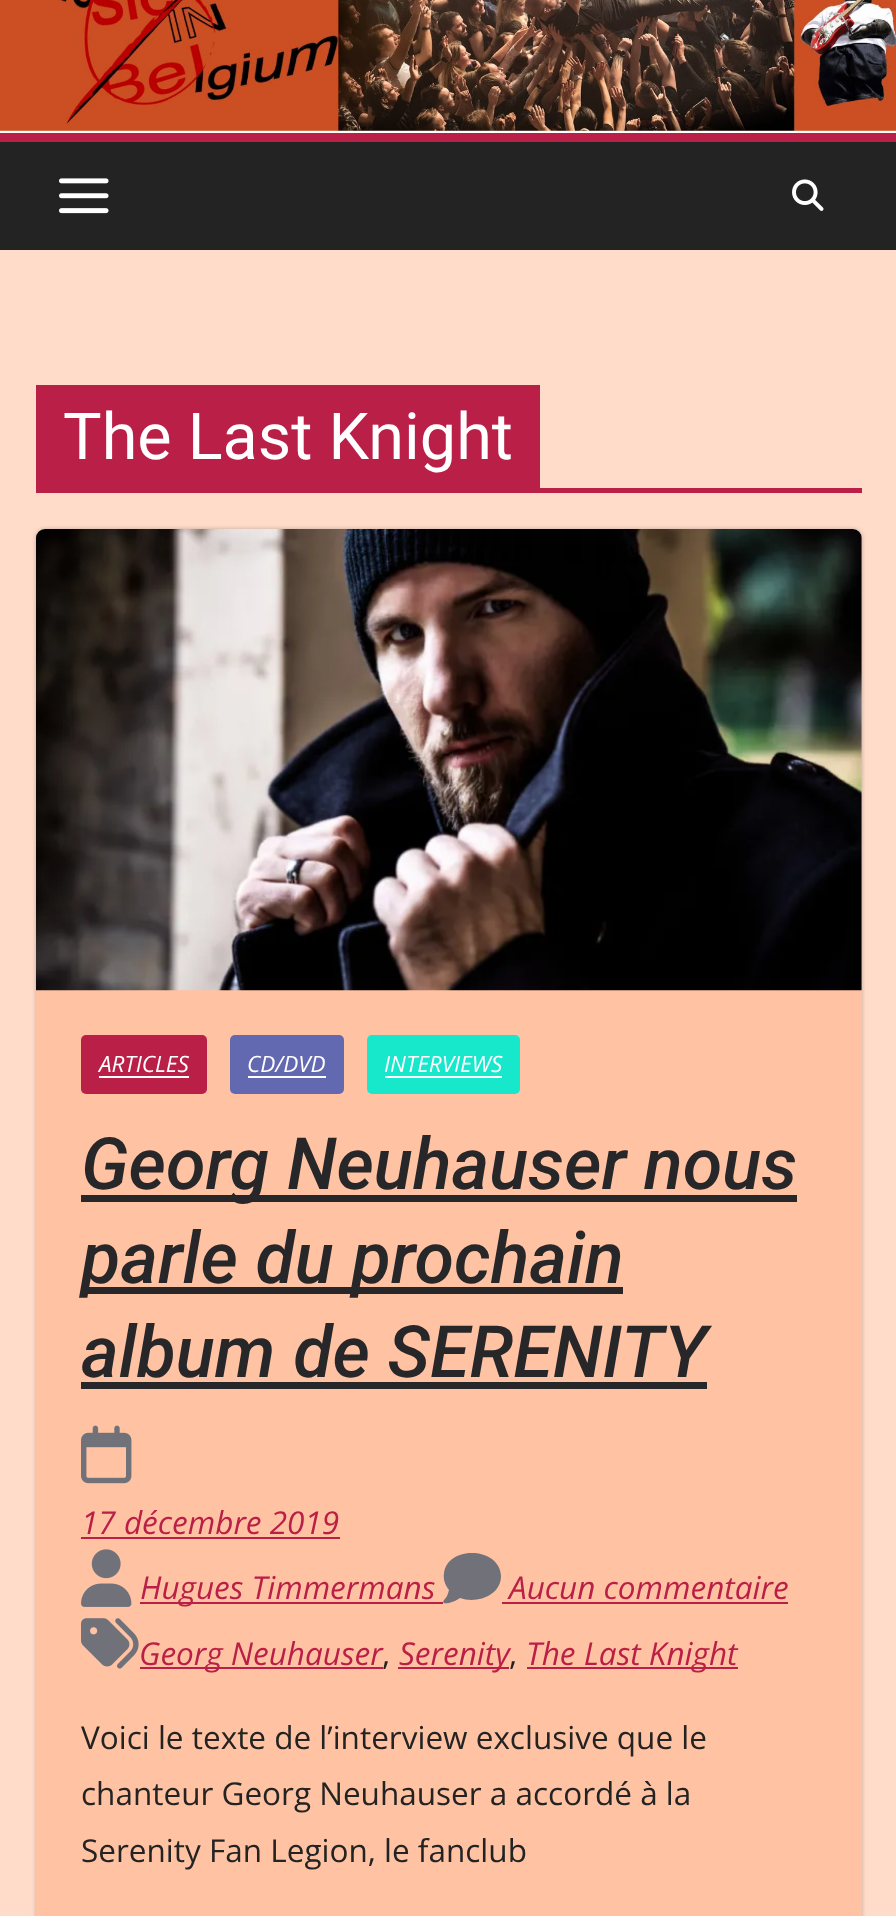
<svg xmlns="http://www.w3.org/2000/svg" width="896" height="1916" viewBox="0 0 896 1916">
  <defs>
    <filter id="blur1" x="-50%" y="-200%" width="200%" height="500%"><feGaussianBlur stdDeviation="2"/></filter>
  </defs>
  <rect width="100%" height="100%" fill="#ffdcca"/>
  <image x="0" y="0" width="896" height="131" href="img1.png"/>
  <rect x="0" y="131" width="896" height="2" fill="#ffffff"/>
  <rect x="0" y="142" width="896" height="108" fill="#232323"/>
  <rect x="0" y="133" width="896" height="9" fill="#ba2047"/>
  <image x="59" y="178" width="50" height="36" href="img2.png"/>
  <image x="792" y="179" width="32" height="32" href="img3.png"/>
  <rect x="36" y="488" width="826" height="5" fill="#ba2047"/>
  <rect x="36" y="385" width="504" height="103" fill="#ba2047"/>
  <text x="63" y="459" font-family="Roboto" font-size="64.75" fill="#ffffff">The Last Knight</text>
  <rect x="36" y="529" width="826" height="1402" rx="9" fill="#000000" fill-opacity="0.24" filter="url(#blur1)"/>
  <rect x="36" y="529" width="826" height="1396" rx="9" fill="#ffc2a2"/>
  <image x="36" y="529" width="826" height="462" href="img4.png"/>
  <rect x="81" y="1035" width="126" height="59" rx="5" fill="#ba2047"/>
  <text x="99" y="1072" font-family="Open Sans" font-size="22.5" font-style="italic" fill="#ffffff">ARTICLES</text>
  <rect x="99" y="1076" width="90" height="2" fill="#ffffff"/>
  <rect x="230" y="1035" width="114" height="59" rx="5" fill="#6369b1"/>
  <text x="247" y="1072" font-family="Open Sans" font-size="22.5" font-style="italic" fill="#ffffff">CD/DVD</text>
  <rect x="248" y="1076" width="78" height="2" fill="#ffffff"/>
  <rect x="367" y="1035" width="153" height="59" rx="5" fill="#17e8cc"/>
  <text x="384" y="1072" font-family="Open Sans" font-size="22.5" font-style="italic" fill="#ffffff">INTERVIEWS</text>
  <rect x="385" y="1076" width="117" height="2" fill="#ffffff"/>
  <rect x="81" y="1195" width="716" height="7" fill="#27272a"/>
  <text x="81" y="1189" font-family="Roboto" font-size="72" font-weight="500" font-style="italic" fill="#27272a">Georg Neuhauser nous</text>
  <rect x="81" y="1287" width="542" height="7" fill="#27272a"/>
  <text x="81" y="1283" font-family="Roboto" font-size="72" font-weight="500" font-style="italic" fill="#27272a">parle du prochain</text>
  <text x="81" y="1377" font-family="Roboto" font-size="72" font-weight="500" font-style="italic" fill="#27272a">album de SERENITY</text>
  <rect x="81" y="1382" width="626" height="7" fill="#27272a"/>
  <image x="81" y="1425" width="51" height="59" href="img5.png"/>
  <text x="81" y="1534" font-family="Open Sans" font-size="31.5" font-style="italic" fill="#ba2047">17 décembre 2019</text>
  <rect x="81" y="1537" width="259" height="2" fill="#ba2047"/>
  <image x="81" y="1549" width="51" height="58" href="img6.png"/>
  <rect x="140" y="1602" width="303" height="2" fill="#ba2047"/>
  <text x="140" y="1599" font-family="Open Sans" font-size="31.5" font-style="italic" fill="#ba2047">Hugues Timmermans</text>
  <path d="M501 1576C501 1596 476 1604 460 1598C457 1600 453 1602 449 1603C447 1603 444 1604 443 1602L444 1600C447 1597 448 1594 449 1590C445 1585 443 1579 444 1573C448 1545 500 1547 501 1576Z" fill="#71717a"/>
  <text x="509" y="1599" font-family="Open Sans" font-size="31.5" font-style="italic" fill="#ba2047">Aucun commentaire</text>
  <rect x="502" y="1602" width="286" height="2" fill="#ba2047"/>
  <image x="81" y="1618" width="58" height="51" href="img7.png"/>
  <rect x="140" y="1667" width="243" height="2" fill="#ba2047"/>
  <text x="139" y="1665" font-family="Open Sans" font-size="31.5" font-style="italic" fill="#ba2047">Georg Neuhauser</text>
  <text x="382" y="1665" font-family="Open Sans" font-size="31.5" fill="#232323">,</text>
  <rect x="398" y="1667" width="111" height="2" fill="#ba2047"/>
  <text x="399" y="1665" font-family="Open Sans" font-size="31.5" font-style="italic" fill="#ba2047">Serenity</text>
  <text x="509" y="1665" font-family="Open Sans" font-size="31.5" fill="#232323">,</text>
  <rect x="527" y="1667" width="211" height="2" fill="#ba2047"/>
  <text x="526" y="1665" font-family="Open Sans" font-size="31.5" font-style="italic" fill="#ba2047">The Last Knight</text>
  <text x="81" y="1749" font-family="Open Sans" font-size="31.5" fill="#232323">Voici le texte de l’interview exclusive que le</text>
  <text x="81" y="1805" font-family="Open Sans" font-size="31.5" fill="#232323">chanteur Georg Neuhauser a accordé à la</text>
  <text x="81" y="1862" font-family="Open Sans" font-size="31.5" fill="#232323">Serenity Fan Legion, le fanclub</text>
</svg>
